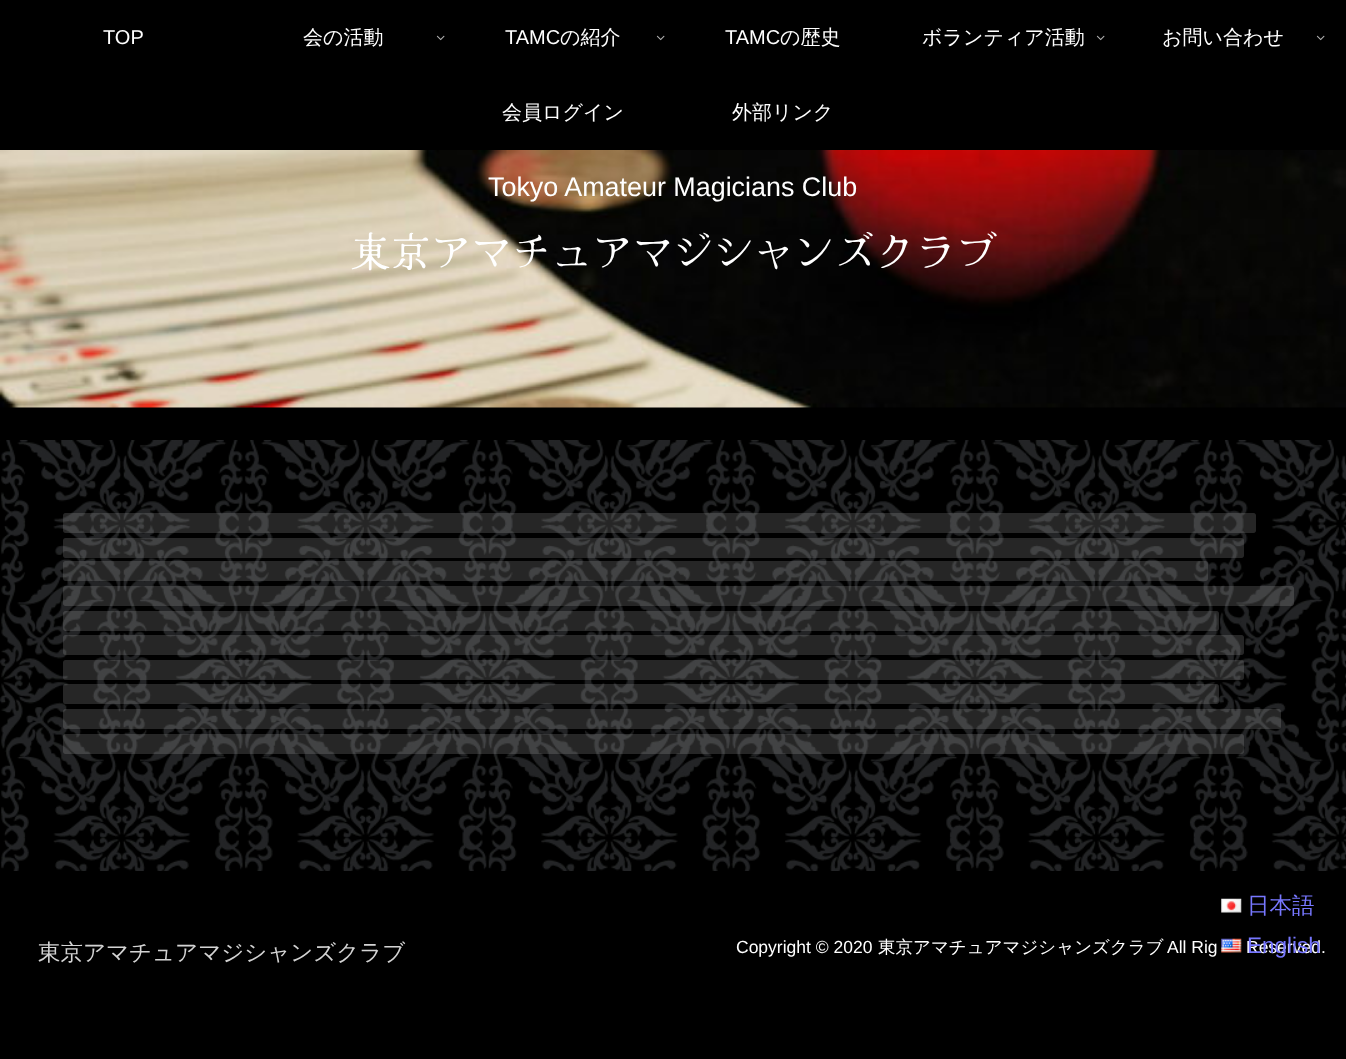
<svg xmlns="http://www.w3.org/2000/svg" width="1346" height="1059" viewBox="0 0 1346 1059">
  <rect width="100%" height="100%" fill="#000000"/>
  <text x="103" y="44" font-family="Liberation Sans" font-size="20" fill="#ffffff">TOP</text>
  <text x="303" y="44" font-family="WenQuanYi Zen Hei" font-size="20" font-weight="500" fill="#ffffff">会の活動</text>
  <image x="436" y="35" width="9" height="6" href="img1.png"/>
  <text x="505" y="44" font-family="Liberation Sans" font-size="20" fill="#ffffff">TAMC</text>
  <text x="560" y="44" font-family="WenQuanYi Zen Hei" font-size="20" font-weight="500" fill="#ffffff">の紹介</text>
  <image x="656" y="35" width="9" height="6" href="img1.png"/>
  <text x="725" y="44" font-family="Liberation Sans" font-size="20" fill="#ffffff">TAMC</text>
  <text x="780" y="44" font-family="WenQuanYi Zen Hei" font-size="20" font-weight="500" fill="#ffffff">の歴史</text>
  <text x="922" y="44" font-family="WenQuanYi Zen Hei" font-size="20" font-weight="500" fill="#ffffff">ボランティア活動</text>
  <image x="1096" y="35" width="9" height="6" href="img1.png"/>
  <text x="1162" y="44" font-family="WenQuanYi Zen Hei" font-size="20" font-weight="500" fill="#ffffff">お問い合わせ</text>
  <image x="1316" y="35" width="9" height="6" href="img1.png"/>
  <text x="502" y="119" font-family="WenQuanYi Zen Hei" font-size="20" font-weight="500" fill="#ffffff">会員ログイン</text>
  <text x="732" y="119" font-family="WenQuanYi Zen Hei" font-size="20" font-weight="500" fill="#ffffff">外部リンク</text>
  <image x="0" y="150" width="1346" height="258" href="img2.png"/>
  <text x="488" y="196" font-family="Liberation Sans" font-size="26.9" fill="#ffffff">Tokyo Amateur Magicians Club</text>
  <text x="350" y="267" font-family="Hina Mincho" font-size="40.4" fill="#ffffff">東京アマチュアマジシャンズクラブ</text>
  <image x="1221" y="898" width="21" height="15" href="img3.png"/>
  <text x="1247" y="913" font-family="WenQuanYi Zen Hei" font-size="22.5" font-weight="500" fill="#7777ff">日本語</text>
  <image x="1221" y="938" width="21" height="15" href="img4.png"/>
  <text x="1246" y="953" font-family="Liberation Sans" font-size="17.5" fill="#ffffff">Reserved.</text>
  <text x="1247" y="953" font-family="Liberation Sans" font-size="22.5" fill="#7777ff">English</text>
  <image x="0" y="440" width="1346" height="431" href="img5.png"/>
  <text x="38" y="960" font-family="WenQuanYi Zen Hei" font-size="22.5" font-weight="500" fill="#d3d3d3">東京アマチュアマジシャンズクラブ</text>
  <text x="736" y="953" font-family="Liberation Sans" font-size="17.5" fill="#ffffff">Copyright © 2020</text>
  <text x="878" y="953" font-family="WenQuanYi Zen Hei" font-size="17.5" font-weight="500" fill="#ffffff">東京アマチュアマジシャンズクラブ</text>
  <text x="1167" y="953" font-family="Liberation Sans" font-size="17.5" fill="#ffffff">All Rig</text>
</svg>
